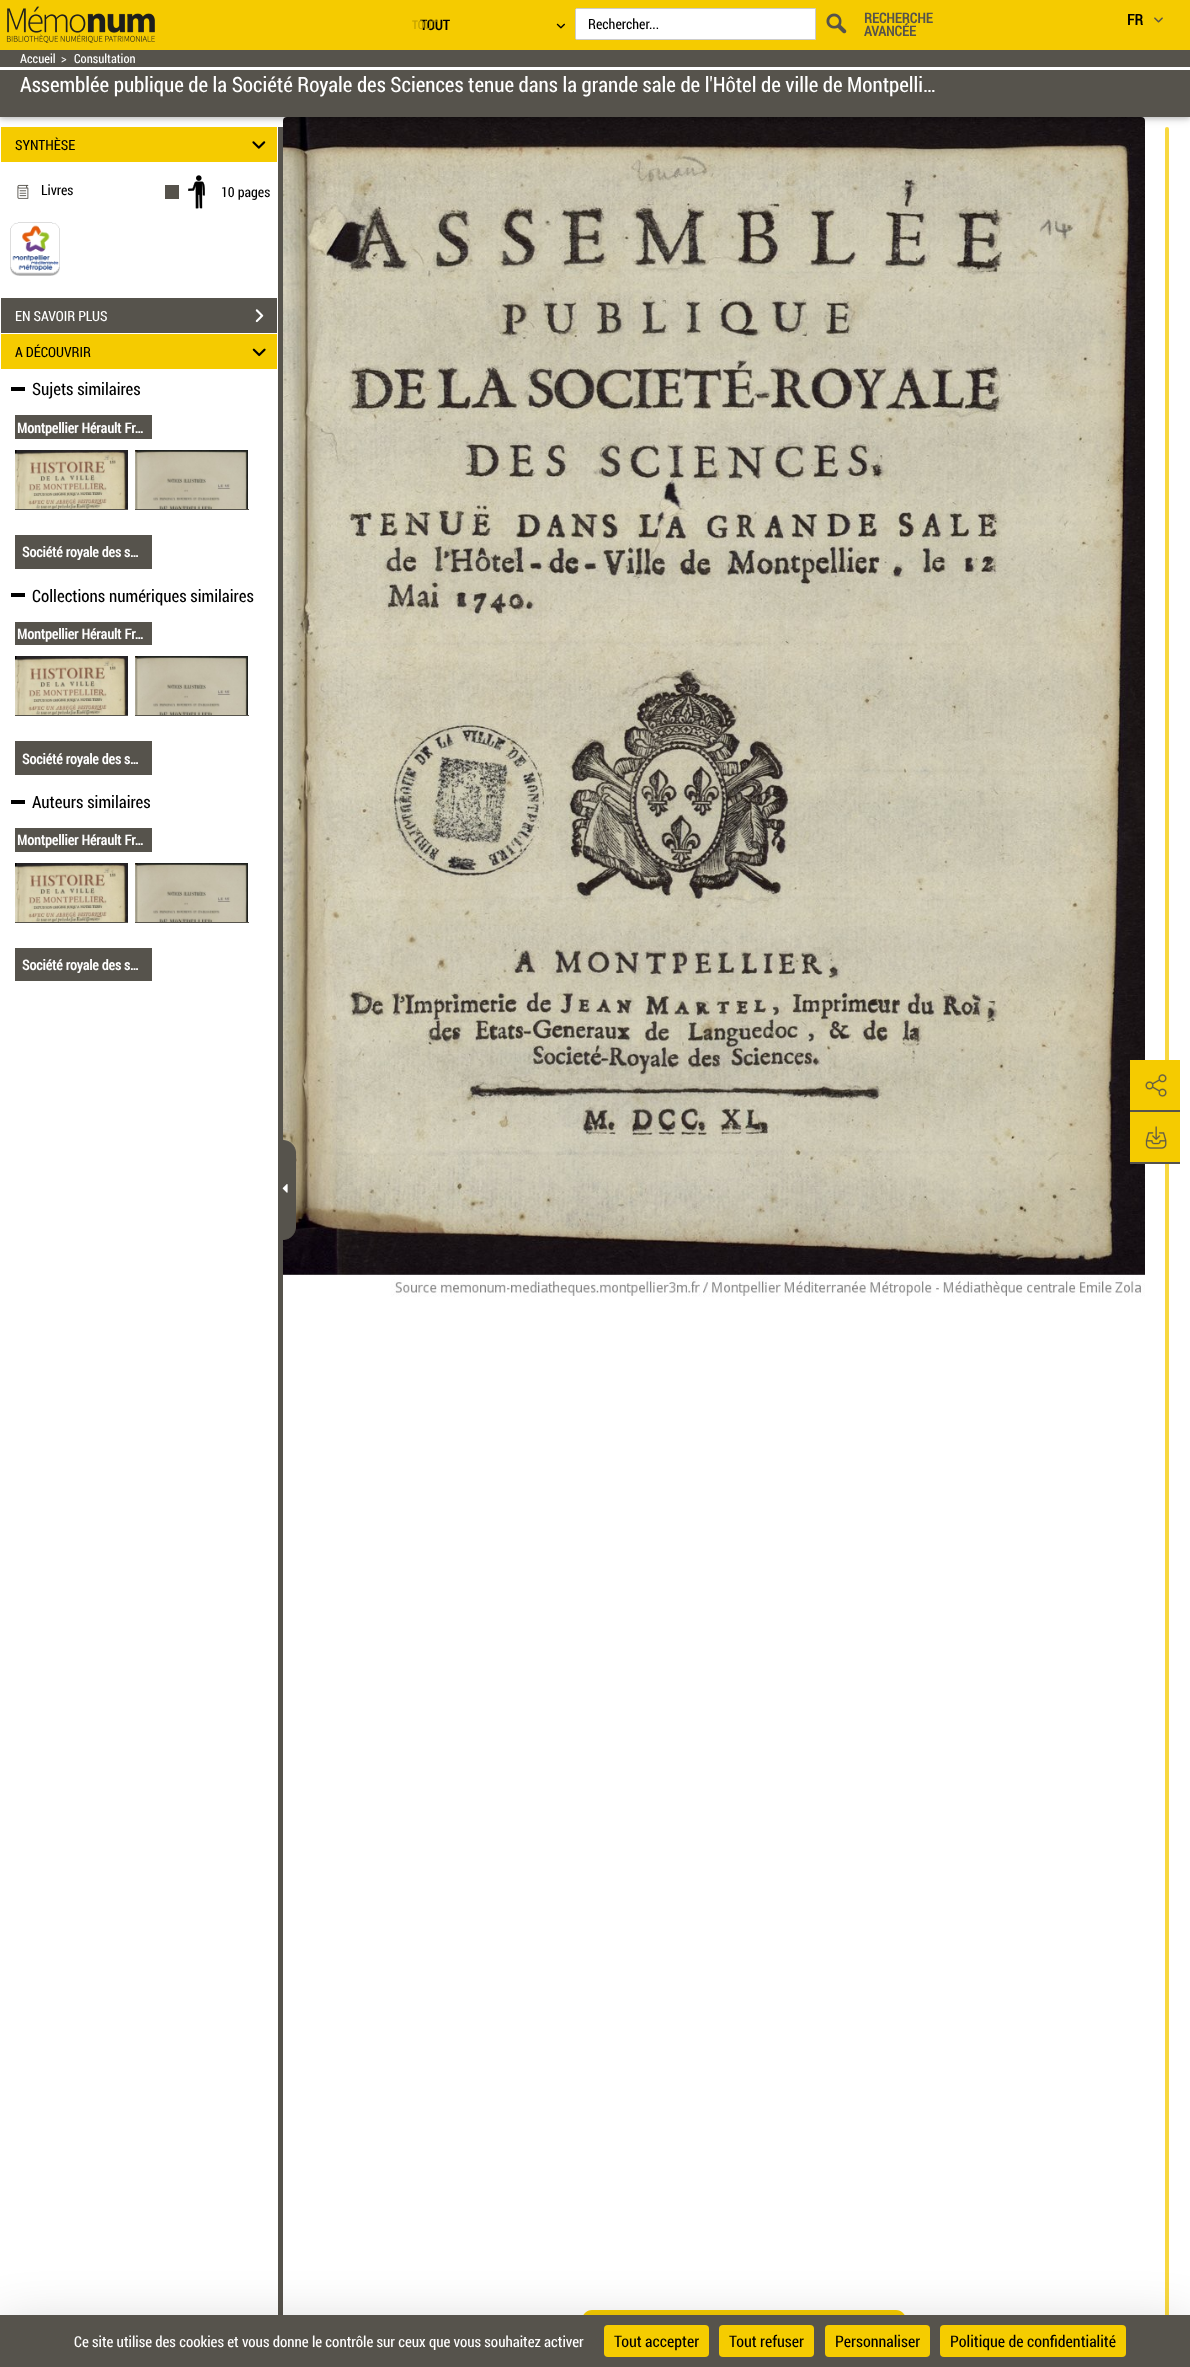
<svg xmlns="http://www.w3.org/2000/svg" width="1190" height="2367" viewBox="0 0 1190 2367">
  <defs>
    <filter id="blur1" x="-50%" y="-200%" width="200%" height="500%"><feGaussianBlur stdDeviation="5"/></filter>
    <filter id="blur2" x="-50%" y="-200%" width="200%" height="500%"><feGaussianBlur stdDeviation="2"/></filter>
    <filter id="blur3" x="-50%" y="-200%" width="200%" height="500%"><feGaussianBlur stdDeviation="30"/></filter>
  </defs>
  <rect width="100%" height="100%" fill="#ffffff"/>
  <image x="283" y="117" width="862" height="1180" href="img14.png"/>
  <rect x="1165" y="127" width="4" height="2220" rx="2" fill="#f8d840"/>
  <rect x="0" y="52" width="1190" height="67" fill="#000000" fill-opacity="0.12" filter="url(#blur1)"/>
  <rect x="0" y="52" width="1190" height="67" fill="#000000" fill-opacity="0.16" filter="url(#blur2)"/>
  <rect x="0" y="0" width="1190" height="50" fill="#f5cb00"/>
  <image x="6" y="6" width="149" height="37" href="img1.png"/>
  <text x="420" y="30" font-family="Roboto Condensed" font-size="14" font-weight="bold" fill="#000000">TOUT</text>
  <image x="556" y="23" width="9" height="6" href="img2.png"/>
  <text x="412" y="29" font-family="Roboto Condensed" font-size="12" fill="#c09f00">TOUT</text>
  <path d="M577 8.5H815.5V39.5H577C576 39.5 575.5 39 575.5 38V10C575.5 9 576 8.5 577 8.5Z" fill="#ffffff" stroke="#cccccc"/>
  <text x="588" y="29" font-family="Roboto Condensed" font-size="14" fill="#000000">Rechercher...</text>
  <image x="826" y="13" width="21" height="21" href="img3.png"/>
  <text x="864" y="23" font-family="Roboto Condensed" font-size="14" font-weight="bold" fill="#56534c">RECHERCHE</text>
  <text x="864" y="36" font-family="Roboto Condensed" font-size="14" font-weight="bold" fill="#56534c">AVANCÉE</text>
  <text x="1127" y="25" font-family="Roboto Condensed" font-size="15" font-weight="bold" fill="#000000">FR</text>
  <image x="1154" y="17" width="9" height="6" href="img4.png"/>
  <rect x="0" y="50" width="1190" height="67" fill="#56534c"/>
  <rect x="0" y="67" width="1190" height="3" fill="#ffffff"/>
  <text x="20" y="63" font-family="Roboto Condensed" font-size="12.5" fill="#ffffff">Accueil</text>
  <text x="61" y="63" font-family="Roboto Condensed" font-size="12.5" fill="#ffffff">&gt;</text>
  <text x="74" y="63" font-family="Roboto Condensed" font-size="12.5" fill="#ffffff">Consultation</text>
  <text x="20" y="92" font-family="Roboto Condensed" font-size="21" fill="#ffffff">Assemblée publique de la Société Royale des Sciences tenue dans la grande sale de l'Hôtel de ville de Montpelli…</text>
  <rect x="278" y="127" width="5" height="2188" fill="#56534c"/>
  <rect x="1" y="127" width="276" height="35" fill="#f5cb00"/>
  <text x="15" y="150" font-family="Roboto Condensed" font-size="14" fill="#000000">SYNTHÈSE</text>
  <image x="252" y="141" width="14" height="8" href="img5.png"/>
  <image x="17" y="184" width="12" height="15" href="img6.png"/>
  <text x="41" y="195" font-family="Roboto Condensed" font-size="14" fill="#000000">Livres</text>
  <rect x="165" y="185" width="14" height="14" fill="#56534c"/>
  <image x="188" y="175" width="17" height="34" href="img7.png"/>
  <text x="221" y="197" font-family="Roboto Condensed" font-size="14" fill="#000000">10 pages</text>
  <image x="10" y="222" width="50" height="54" href="img8.png"/>
  <rect x="1" y="298" width="276" height="35" fill="#56534c"/>
  <text x="15" y="321" font-family="Roboto Condensed" font-size="14" fill="#ffffff">EN SAVOIR PLUS</text>
  <image x="255" y="309" width="9" height="14" href="img9.png"/>
  <rect x="1" y="334" width="276" height="35" fill="#f5cb00"/>
  <text x="15" y="357" font-family="Roboto Condensed" font-size="14" fill="#000000">A DÉCOUVRIR</text>
  <image x="252" y="348" width="14" height="9" href="img10.png"/>
  <text x="32" y="395" font-family="Roboto Condensed" font-size="17" fill="#000000">Sujets similaires</text>
  <rect x="11" y="387" width="14" height="4" fill="#000000"/>
  <rect x="15" y="415" width="137" height="24" fill="#56534c"/>
  <text x="17" y="433" font-family="Roboto Condensed" font-size="14" font-weight="bold" fill="#ffffff">Montpellier Hérault Fr…</text>
  <image x="15" y="450" width="113" height="59" href="img11.png"/>
  <rect x="15" y="509" width="113" height="1" fill="#56534c"/>
  <image x="135" y="450" width="113" height="59" href="img12.png"/>
  <rect x="135" y="509" width="114" height="1" fill="#56534c"/>
  <rect x="15" y="535" width="137" height="34" fill="#56534c"/>
  <text x="22" y="557" font-family="Roboto Condensed" font-size="14" font-weight="bold" fill="#ffffff">Société royale des s…</text>
  <text x="32" y="602" font-family="Roboto Condensed" font-size="17" fill="#000000">Collections numériques similaires</text>
  <rect x="11" y="593" width="14" height="4" fill="#000000"/>
  <rect x="15" y="622" width="137" height="23" fill="#56534c"/>
  <text x="17" y="639" font-family="Roboto Condensed" font-size="14" font-weight="bold" fill="#ffffff">Montpellier Hérault Fr…</text>
  <image x="15" y="656" width="113" height="59" href="img11.png"/>
  <rect x="15" y="715" width="113" height="1" fill="#56534c"/>
  <image x="135" y="656" width="113" height="59" href="img12.png"/>
  <rect x="135" y="715" width="114" height="1" fill="#56534c"/>
  <rect x="15" y="741" width="137" height="34" fill="#56534c"/>
  <text x="22" y="764" font-family="Roboto Condensed" font-size="14" font-weight="bold" fill="#ffffff">Société royale des s…</text>
  <text x="32" y="808" font-family="Roboto Condensed" font-size="17" fill="#000000">Auteurs similaires</text>
  <rect x="11" y="800" width="14" height="4" fill="#000000"/>
  <rect x="15" y="828" width="137" height="24" fill="#56534c"/>
  <text x="17" y="845" font-family="Roboto Condensed" font-size="14" font-weight="bold" fill="#ffffff">Montpellier Hérault Fr…</text>
  <image x="15" y="863" width="113" height="59" href="img11.png"/>
  <rect x="15" y="922" width="113" height="1" fill="#56534c"/>
  <image x="135" y="863" width="113" height="59" href="img12.png"/>
  <rect x="135" y="922" width="114" height="1" fill="#56534c"/>
  <rect x="15" y="948" width="137" height="33" fill="#56534c"/>
  <text x="22" y="970" font-family="Roboto Condensed" font-size="14" font-weight="bold" fill="#ffffff">Société royale des s…</text>
  <path d="M283.5 1140.5H283C290 1140.5 295.5 1146 295.5 1153V1227C295.5 1234 290 1239.5 283 1239.5H283.5Z" fill="#56534c" stroke="#56534c"/>
  <image x="282" y="1184" width="6" height="9" href="img13.png"/>
  <rect x="1130" y="1060" width="50" height="50" fill="#f5cb00"/>
  <image x="1145" y="1074" width="22" height="23" href="img15.png"/>
  <rect x="1130" y="1110" width="50" height="2" fill="#56534c"/>
  <rect x="1130" y="1112" width="50" height="50" fill="#f5cb00"/>
  <image x="1145" y="1126" width="22" height="23" href="img16.png"/>
  <rect x="1130" y="1162" width="50" height="2" fill="#56534c"/>
  <path d="M592 2310H896C901.5 2310 906 2314.5 906 2320V2367H582V2320C582 2314.5 586.5 2310 592 2310Z" fill="#f5cb00"/>
  <rect x="0" y="2335" width="1190" height="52" fill="#000000" fill-opacity="0.25" filter="url(#blur3)"/>
  <rect x="0" y="2315" width="1190" height="52" fill="#56534c"/>
  <text x="74" y="2347" font-family="Roboto Condensed" font-size="15" fill="#ffffff">Ce site utilise des cookies et vous donne le contrôle sur ceux que vous souhaitez activer</text>
  <rect x="604" y="2325" width="105" height="32" rx="4" fill="#f5cc00"/>
  <text x="614" y="2347" font-family="Roboto Condensed" font-size="16" fill="#000000">Tout accepter</text>
  <rect x="719" y="2325" width="95" height="32" rx="4" fill="#f5cc00"/>
  <text x="729" y="2347" font-family="Roboto Condensed" font-size="16" fill="#000000">Tout refuser</text>
  <rect x="825" y="2325" width="105" height="32" rx="4" fill="#f5cc00"/>
  <text x="835" y="2347" font-family="Roboto Condensed" font-size="16" fill="#000000">Personnaliser</text>
  <rect x="940" y="2325" width="186" height="32" rx="4" fill="#f5cc00"/>
  <text x="950" y="2347" font-family="Roboto Condensed" font-size="16" fill="#000000">Politique de confidentialité</text>
</svg>
